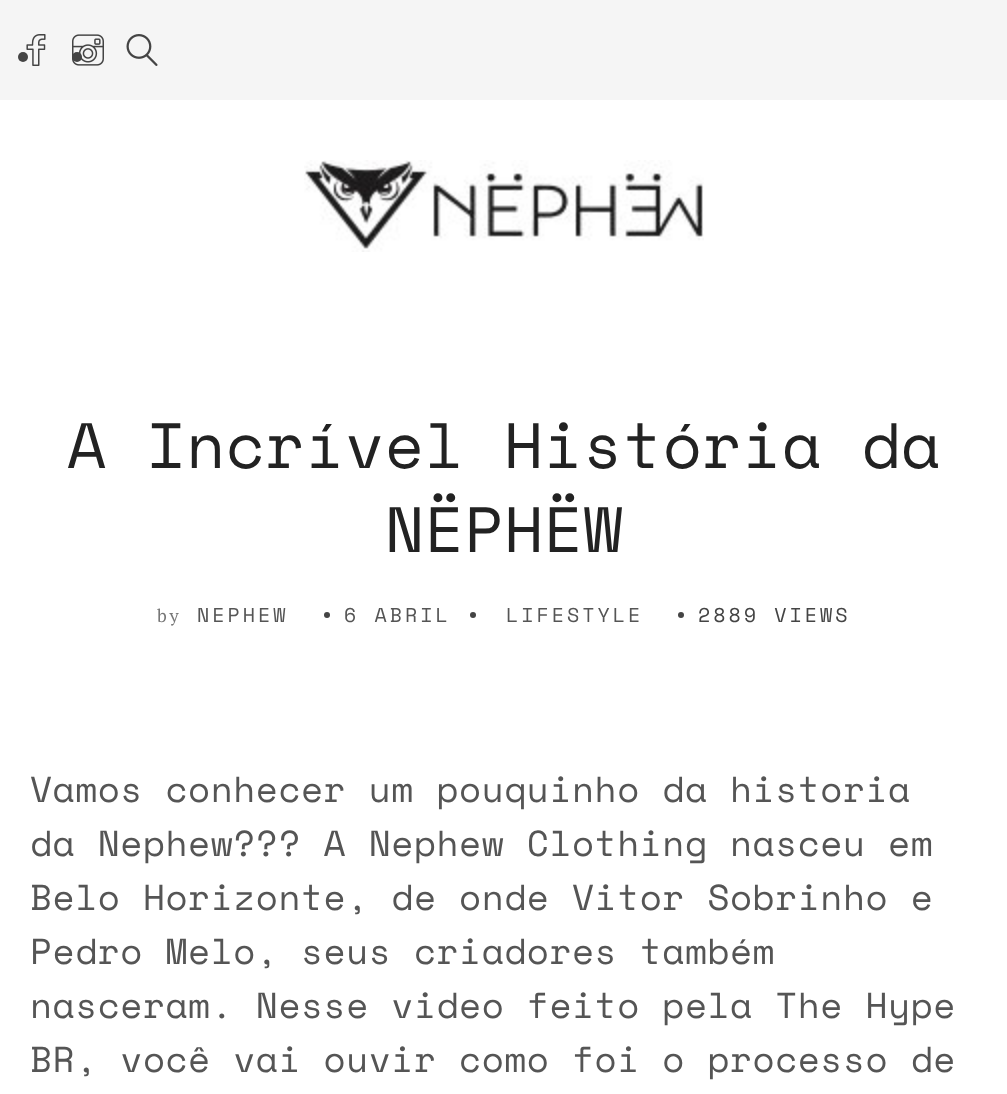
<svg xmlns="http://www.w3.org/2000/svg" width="1007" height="1094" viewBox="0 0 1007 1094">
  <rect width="100%" height="100%" fill="#ffffff"/>
  <rect x="0" y="0" width="1007" height="100" fill="#f5f5f5"/>
  <image x="26" y="34" width="20" height="32" href="img2.png"/>
  <circle cx="23" cy="57" r="5" fill="#444444"/>
  <image x="72" y="34" width="32" height="32" href="img1.png"/>
  <circle cx="77" cy="57" r="5" fill="#444444"/>
  <image x="126" y="34" width="32" height="32" href="img3.png"/>
  <image x="304" y="160" width="400" height="92" href="img4.png"/>
  <text x="67" y="468" font-family="Space Mono" font-size="64" letter-spacing="0.55" fill="#222222">A Incrível História da</text>
  <text x="385" y="552" font-family="Space Mono" font-size="64" letter-spacing="0.55" fill="#222222">NËPHËW</text>
  <text x="157" y="622" font-family="PT Serif" font-size="18" letter-spacing="3" fill="#777777">by</text>
  <text x="197" y="622" font-family="Space Mono" font-size="20" letter-spacing="3" fill="#555555">NEPHEW</text>
  <circle cx="327" cy="615" r="3" fill="#444444"/>
  <text x="344" y="622" font-family="Space Mono" font-size="20" letter-spacing="3" fill="#555555">6 ABRIL</text>
  <circle cx="473" cy="615" r="3" fill="#444444"/>
  <text x="506" y="622" font-family="Space Mono" font-size="20" letter-spacing="3" fill="#555555">LIFESTYLE</text>
  <circle cx="681" cy="615" r="3" fill="#444444"/>
  <text x="698" y="622" font-family="Space Mono" font-size="20" letter-spacing="3" fill="#444444">2889 VIEWS</text>
  <text x="30" y="802" font-family="Space Mono" font-size="36" letter-spacing="0.55" fill="#555555">Vamos conhecer um pouquinho da historia</text>
  <text x="30" y="856" font-family="Space Mono" font-size="36" letter-spacing="0.55" fill="#555555">da Nephew??? A Nephew Clothing nasceu em</text>
  <text x="30" y="910" font-family="Space Mono" font-size="36" letter-spacing="0.55" fill="#555555">Belo Horizonte, de onde Vitor Sobrinho e</text>
  <text x="30" y="964" font-family="Space Mono" font-size="36" letter-spacing="0.55" fill="#555555">Pedro Melo, seus criadores também</text>
  <text x="30" y="1018" font-family="Space Mono" font-size="36" letter-spacing="0.55" fill="#555555">nasceram. Nesse video feito pela The Hype</text>
  <text x="30" y="1072" font-family="Space Mono" font-size="36" letter-spacing="0.55" fill="#555555">BR, você vai ouvir como foi o processo de</text>
</svg>
